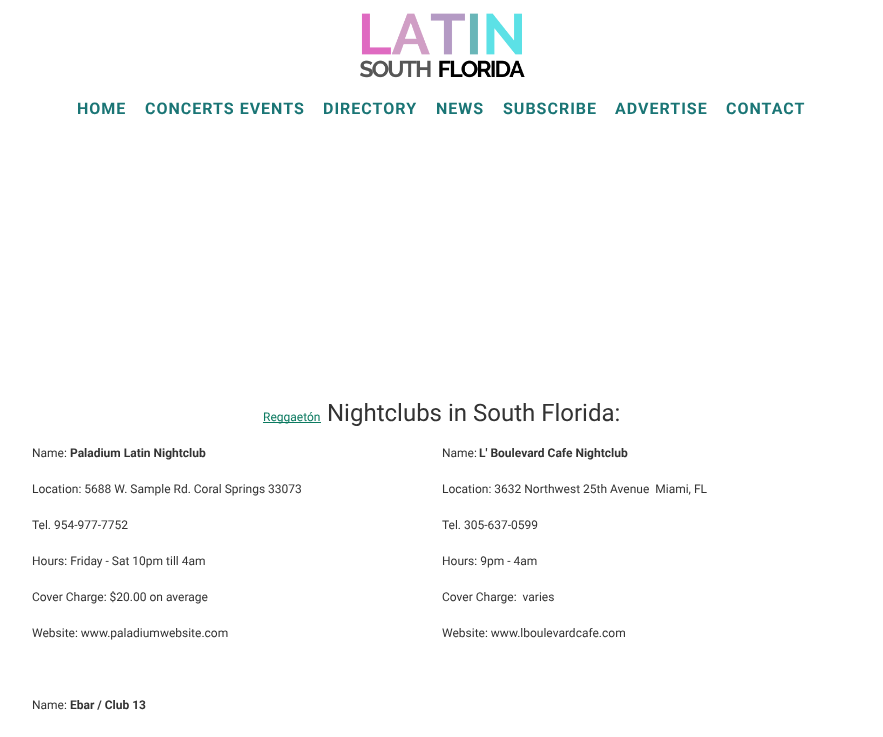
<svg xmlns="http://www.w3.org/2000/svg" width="883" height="737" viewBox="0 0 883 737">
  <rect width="100%" height="100%" fill="#ffffff"/>
  <image x="360" y="13" width="165" height="65" href="img1.png"/>
  <text x="77" y="114" font-family="Roboto" font-size="16" font-weight="bold" letter-spacing="1" fill="#1a7575">HOME</text>
  <text x="145" y="114" font-family="Roboto" font-size="16" font-weight="bold" letter-spacing="1" fill="#1a7575">CONCERTS EVENTS</text>
  <text x="323" y="114" font-family="Roboto" font-size="16" font-weight="bold" letter-spacing="1" fill="#1a7575">DIRECTORY</text>
  <text x="436" y="114" font-family="Roboto" font-size="16" font-weight="bold" letter-spacing="1" fill="#1a7575">NEWS</text>
  <text x="503" y="114" font-family="Roboto" font-size="16" font-weight="bold" letter-spacing="1" fill="#1a7575">SUBSCRIBE</text>
  <text x="615" y="114" font-family="Roboto" font-size="16" font-weight="bold" letter-spacing="1" fill="#1a7575">ADVERTISE</text>
  <text x="726" y="114" font-family="Roboto" font-size="16" font-weight="bold" letter-spacing="1" fill="#1a7575">CONTACT</text>
  <rect x="263" y="422" width="58" height="1" fill="#0b7a60"/>
  <text x="263" y="421" font-family="Roboto" font-size="12" fill="#0b7a60">Reggaetón</text>
  <text x="327" y="421" font-family="Roboto" font-size="24" fill="#333333">Nightclubs in South Florida:</text>
  <text x="32" y="457" font-family="Roboto" font-size="12" fill="#333333">Name:</text>
  <text x="70" y="457" font-family="Roboto" font-size="12" font-weight="bold" fill="#333333">Paladium Latin Nightclub</text>
  <text x="32" y="493" font-family="Roboto" font-size="12" fill="#333333">Location: 5688 W. Sample Rd. Coral Springs 33073</text>
  <text x="32" y="529" font-family="Roboto" font-size="12" fill="#333333">Tel. 954-977-7752</text>
  <text x="32" y="565" font-family="Roboto" font-size="12" fill="#333333">Hours: Friday - Sat 10pm till 4am</text>
  <text x="32" y="601" font-family="Roboto" font-size="12" fill="#333333">Cover Charge: $20.00 on average</text>
  <text x="32" y="637" font-family="Roboto" font-size="12" fill="#333333">Website: www.paladiumwebsite.com</text>
  <text x="32" y="709" font-family="Roboto" font-size="12" fill="#333333">Name:</text>
  <text x="70" y="709" font-family="Roboto" font-size="12" font-weight="bold" fill="#333333">Ebar / Club 13</text>
  <text x="442" y="457" font-family="Roboto" font-size="12" fill="#333333">Name:</text>
  <text x="479" y="457" font-family="Roboto" font-size="12" font-weight="bold" fill="#333333">L' Boulevard Cafe Nightclub</text>
  <text x="442" y="493" font-family="Roboto" font-size="12" fill="#333333" xml:space="preserve">Location: 3632 Northwest 25th Avenue  Miami, FL</text>
  <text x="442" y="529" font-family="Roboto" font-size="12" fill="#333333">Tel. 305-637-0599</text>
  <text x="442" y="565" font-family="Roboto" font-size="12" fill="#333333">Hours: 9pm - 4am</text>
  <text x="442" y="601" font-family="Roboto" font-size="12" fill="#333333" xml:space="preserve">Cover Charge:  varies</text>
  <text x="442" y="637" font-family="Roboto" font-size="12" fill="#333333">Website: www.lboulevardcafe.com</text>
</svg>
